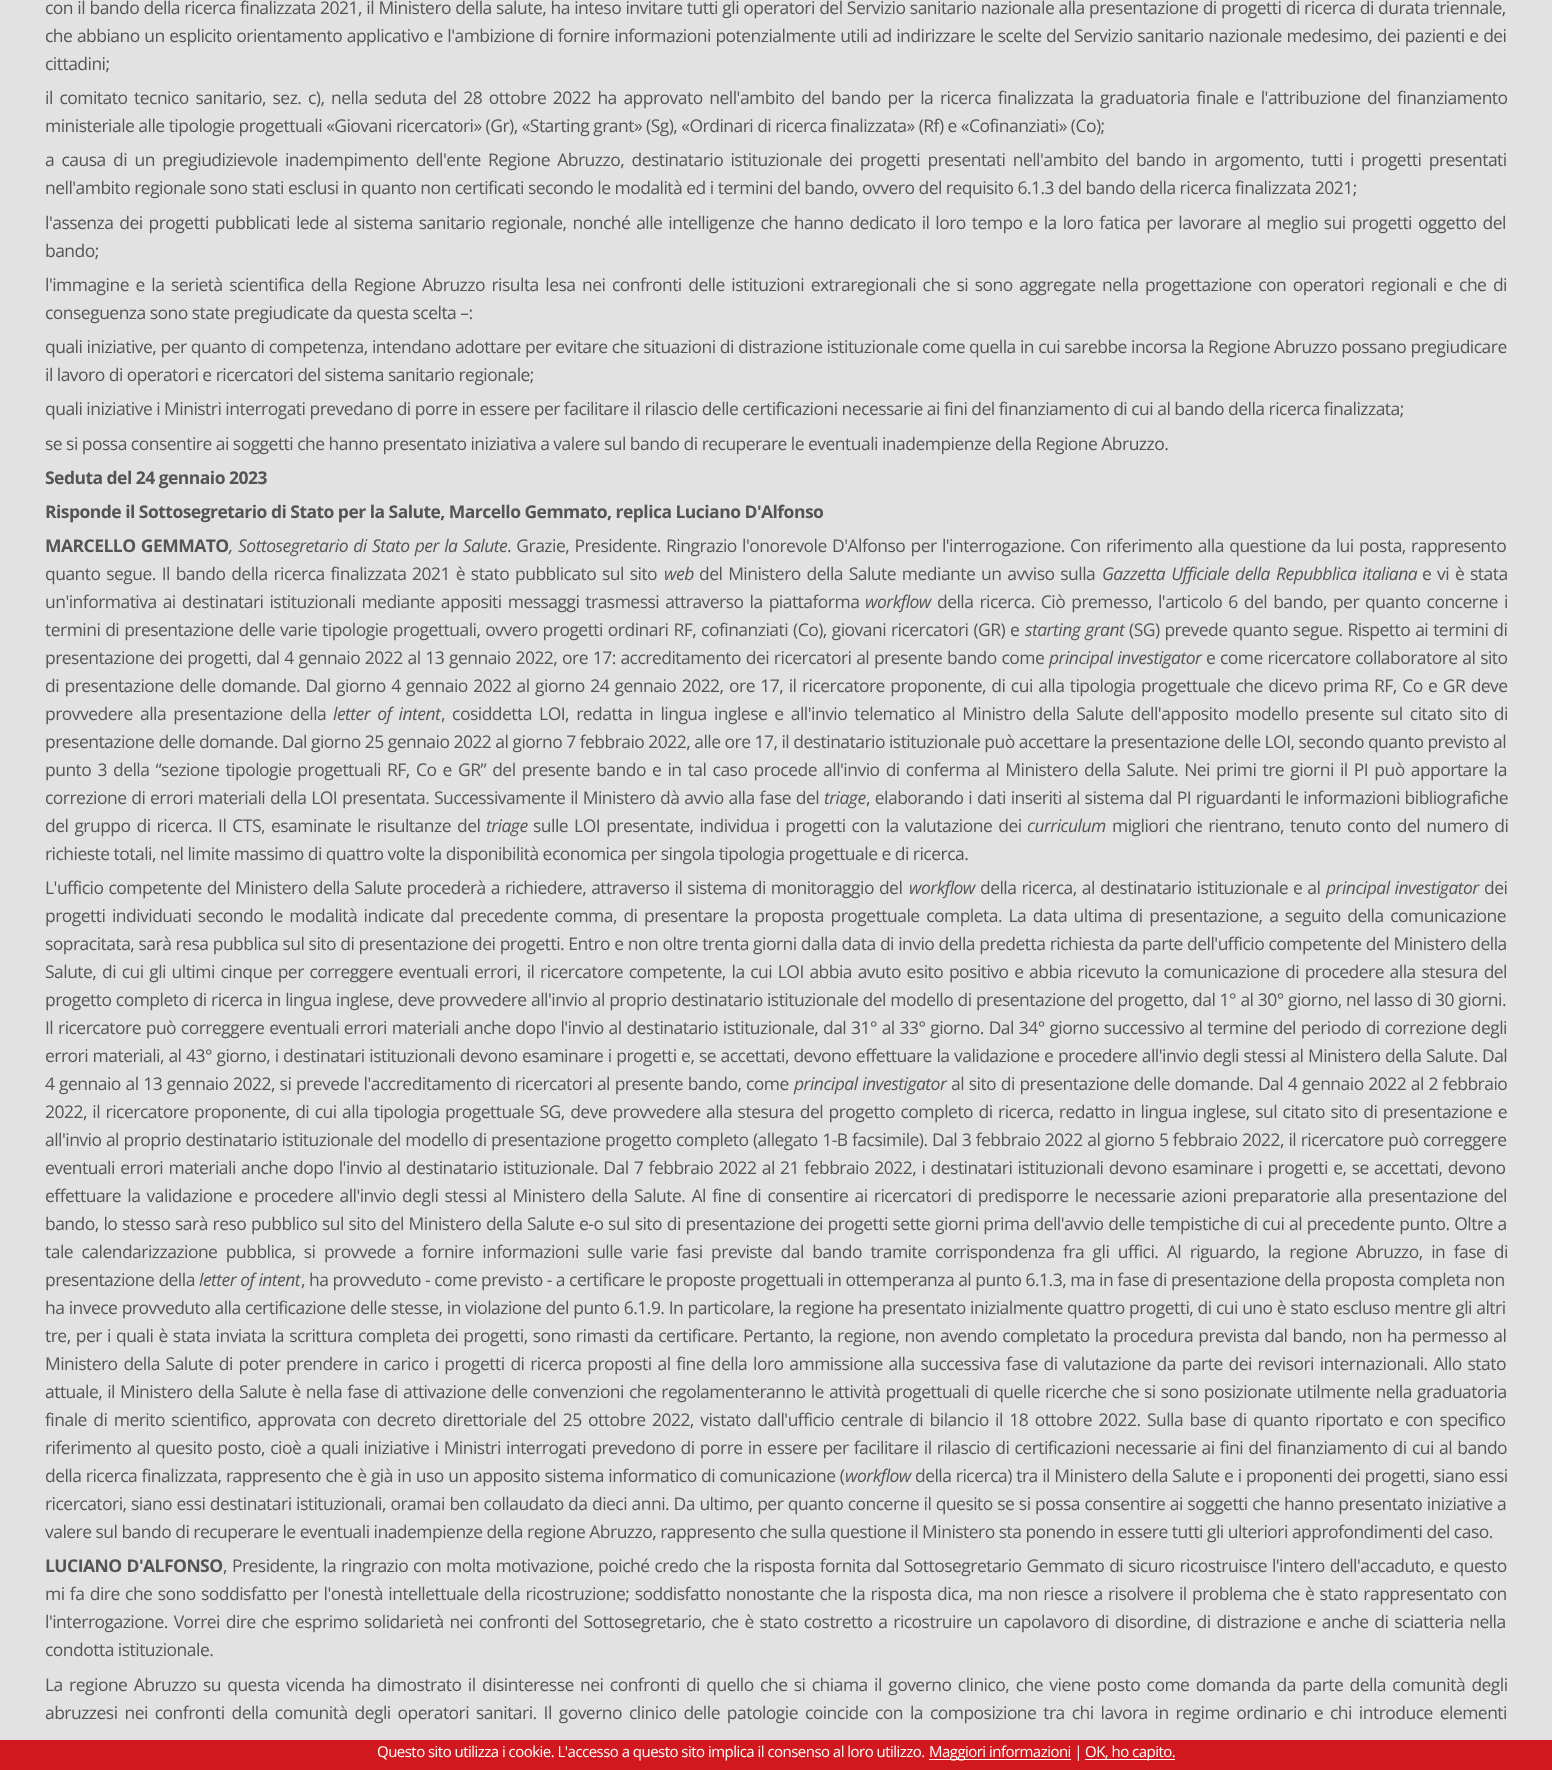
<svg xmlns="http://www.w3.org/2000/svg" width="1552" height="1770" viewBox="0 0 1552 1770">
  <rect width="100%" height="100%" fill="#e2e2e2"/>
  <text x="45" y="14" word-spacing="0.3" font-family="Open Sans" font-size="17.5" letter-spacing="-0.53" fill="#555555">con il bando della ricerca finalizzata 2021, il Ministero della salute, ha inteso invitare tutti gli operatori del Servizio sanitario nazionale alla presentazione di progetti di ricerca di durata triennale,</text>
  <text x="45" y="42" word-spacing="0.55" font-family="Open Sans" font-size="17.5" letter-spacing="-0.53" fill="#555555">che abbiano un esplicito orientamento applicativo e l'ambizione di fornire informazioni potenzialmente utili ad indirizzare le scelte del Servizio sanitario nazionale medesimo, dei pazienti e dei</text>
  <text x="45" y="70" font-family="Open Sans" font-size="17.5" letter-spacing="-0.53" fill="#555555">cittadini;</text>
  <text x="45" y="104" word-spacing="2.6" font-family="Open Sans" font-size="17.5" letter-spacing="-0.53" fill="#555555">il comitato tecnico sanitario, sez. c), nella seduta del 28 ottobre 2022 ha approvato nell'ambito del bando per la ricerca finalizzata la graduatoria finale e l'attribuzione del finanziamento</text>
  <text x="45" y="132" font-family="Open Sans" font-size="17.5" letter-spacing="-0.53" fill="#555555">ministeriale alle tipologie progettuali «Giovani ricercatori» (Gr), «Starting grant» (Sg), «Ordinari di ricerca finalizzata» (Rf) e «Cofinanziati» (Co);</text>
  <text x="45" y="166" word-spacing="3.3" font-family="Open Sans" font-size="17.5" letter-spacing="-0.53" fill="#555555">a causa di un pregiudizievole inadempimento dell'ente Regione Abruzzo, destinatario istituzionale dei progetti presentati nell'ambito del bando in argomento, tutti i progetti presentati</text>
  <text x="45" y="194" font-family="Open Sans" font-size="17.5" letter-spacing="-0.53" fill="#555555">nell'ambito regionale sono stati esclusi in quanto non certificati secondo le modalità ed i termini del bando, ovvero del requisito 6.1.3 del bando della ricerca finalizzata 2021;</text>
  <text x="45" y="229" word-spacing="1.9" font-family="Open Sans" font-size="17.5" letter-spacing="-0.53" fill="#555555">l'assenza dei progetti pubblicati lede al sistema sanitario regionale, nonché alle intelligenze che hanno dedicato il loro tempo e la loro fatica per lavorare al meglio sui progetti oggetto del</text>
  <text x="45" y="257" font-family="Open Sans" font-size="17.5" letter-spacing="-0.53" fill="#555555">bando;</text>
  <text x="45" y="291" word-spacing="2.5" font-family="Open Sans" font-size="17.5" letter-spacing="-0.53" fill="#555555">l'immagine e la serietà scientifica della Regione Abruzzo risulta lesa nei confronti delle istituzioni extraregionali che si sono aggregate nella progettazione con operatori regionali e che di</text>
  <text x="45" y="319" font-family="Open Sans" font-size="17.5" letter-spacing="-0.53" fill="#555555">conseguenza sono state pregiudicate da questa scelta –:</text>
  <text x="45" y="353" word-spacing="0.15" font-family="Open Sans" font-size="17.5" letter-spacing="-0.53" fill="#555555">quali iniziative, per quanto di competenza, intendano adottare per evitare che situazioni di distrazione istituzionale come quella in cui sarebbe incorsa la Regione Abruzzo possano pregiudicare</text>
  <text x="45" y="381" font-family="Open Sans" font-size="17.5" letter-spacing="-0.53" fill="#555555">il lavoro di operatori e ricercatori del sistema sanitario regionale;</text>
  <text x="45" y="415" font-family="Open Sans" font-size="17.5" letter-spacing="-0.53" fill="#555555">quali iniziative i Ministri interrogati prevedano di porre in essere per facilitare il rilascio delle certificazioni necessarie ai fini del finanziamento di cui al bando della ricerca finalizzata;</text>
  <text x="45" y="450" font-family="Open Sans" font-size="17.5" letter-spacing="-0.53" fill="#555555">se si possa consentire ai soggetti che hanno presentato iniziativa a valere sul bando di recuperare le eventuali inadempienze della Regione Abruzzo.</text>
  <text x="45" y="484" font-family="Open Sans" font-size="17.5" font-weight="bold" letter-spacing="-0.53" fill="#555555">Seduta del 24 gennaio 2023</text>
  <text x="45" y="518" font-family="Open Sans" font-size="17.5" font-weight="bold" letter-spacing="-0.53" fill="#555555">Risponde il Sottosegretario di Stato per la Salute, Marcello Gemmato, replica Luciano D'Alfonso</text>
  <text x="45" y="552" word-spacing="1.25" font-family="Open Sans" font-size="17.5" font-weight="bold" letter-spacing="-0.53" fill="#555555">MARCELLO GEMMATO</text>
  <text x="229" y="552" word-spacing="1.25" font-family="Open Sans" font-size="17.5" font-style="italic" letter-spacing="-0.53" fill="#555555">, Sottosegretario di Stato per la Salute</text>
  <text x="507" y="552" word-spacing="1.25" font-family="Open Sans" font-size="17.5" letter-spacing="-0.53" fill="#555555">. Grazie, Presidente. Ringrazio l'onorevole D'Alfonso per l'interrogazione. Con riferimento alla questione da lui posta, rappresento</text>
  <text x="45" y="580" word-spacing="1.75" font-family="Open Sans" font-size="17.5" letter-spacing="-0.53" fill="#555555">quanto segue. Il bando della ricerca finalizzata 2021 è stato pubblicato sul sito</text>
  <text x="664" y="580" font-family="Open Sans" font-size="17.5" font-style="italic" letter-spacing="-0.53" fill="#555555">web</text>
  <text x="699" y="580" word-spacing="1.75" font-family="Open Sans" font-size="17.5" letter-spacing="-0.53" fill="#555555">del Ministero della Salute mediante un avviso sulla</text>
  <text x="1102" y="580" word-spacing="2" font-family="Open Sans" font-size="17.5" font-style="italic" letter-spacing="-0.53" fill="#555555">Gazzetta Ufficiale della Repubblica italiana</text>
  <text x="1422" y="580" word-spacing="1.75" font-family="Open Sans" font-size="17.5" letter-spacing="-0.53" fill="#555555">e vi è stata</text>
  <text x="45" y="608" word-spacing="2" font-family="Open Sans" font-size="17.5" letter-spacing="-0.53" fill="#555555">un'informativa ai destinatari istituzionali mediante appositi messaggi trasmessi attraverso la piattaforma</text>
  <text x="865" y="608" font-family="Open Sans" font-size="17.5" font-style="italic" letter-spacing="-0.53" fill="#555555">workflow</text>
  <text x="937" y="608" word-spacing="2" font-family="Open Sans" font-size="17.5" letter-spacing="-0.53" fill="#555555">della ricerca. Ciò premesso, l'articolo 6 del bando, per quanto concerne i</text>
  <text x="45" y="636" word-spacing="0.9" font-family="Open Sans" font-size="17.5" letter-spacing="-0.53" fill="#555555">termini di presentazione delle varie tipologie progettuali, ovvero progetti ordinari RF, cofinanziati (Co), giovani ricercatori (GR) e</text>
  <text x="1025" y="636" word-spacing="0.9" font-family="Open Sans" font-size="17.5" font-style="italic" letter-spacing="-0.53" fill="#555555">starting grant</text>
  <text x="1129" y="636" word-spacing="0.9" font-family="Open Sans" font-size="17.5" letter-spacing="-0.53" fill="#555555">(SG) prevede quanto segue. Rispetto ai termini di</text>
  <text x="45" y="664" word-spacing="0.7" font-family="Open Sans" font-size="17.5" letter-spacing="-0.53" fill="#555555">presentazione dei progetti, dal 4 gennaio 2022 al 13 gennaio 2022, ore 17: accreditamento dei ricercatori al presente bando come</text>
  <text x="1049" y="664" word-spacing="0.7" font-family="Open Sans" font-size="17.5" font-style="italic" letter-spacing="-0.53" fill="#555555">principal investigator</text>
  <text x="1206" y="664" word-spacing="0.7" font-family="Open Sans" font-size="17.5" letter-spacing="-0.53" fill="#555555">e come ricercatore collaboratore al sito</text>
  <text x="45" y="692" word-spacing="1.4" font-family="Open Sans" font-size="17.5" letter-spacing="-0.53" fill="#555555">di presentazione delle domande. Dal giorno 4 gennaio 2022 al giorno 24 gennaio 2022, ore 17, il ricercatore proponente, di cui alla tipologia progettuale che dicevo prima RF, Co e GR deve</text>
  <text x="45" y="720" word-spacing="3.1" font-family="Open Sans" font-size="17.5" letter-spacing="-0.53" fill="#555555">provvedere alla presentazione della</text>
  <text x="333" y="720" word-spacing="3.1" font-family="Open Sans" font-size="17.5" font-style="italic" letter-spacing="-0.53" fill="#555555">letter of intent</text>
  <text x="441" y="720" word-spacing="3.1" font-family="Open Sans" font-size="17.5" letter-spacing="-0.53" fill="#555555">, cosiddetta LOI, redatta in lingua inglese e all'invio telematico al Ministro della Salute dell'apposito modello presente sul citato sito di</text>
  <text x="45" y="748" font-family="Open Sans" font-size="17.5" letter-spacing="-0.53" fill="#555555">presentazione delle domande. Dal giorno 25 gennaio 2022 al giorno 7 febbraio 2022, alle ore 17, il destinatario istituzionale può accettare la presentazione delle LOI, secondo quanto previsto al</text>
  <text x="45" y="776" word-spacing="2.1" font-family="Open Sans" font-size="17.5" letter-spacing="-0.53" fill="#555555">punto 3 della “sezione tipologie progettuali RF, Co e GR” del presente bando e in tal caso procede all'invio di conferma al Ministero della Salute. Nei primi tre giorni il PI può apportare la</text>
  <text x="45" y="804" word-spacing="0.75" font-family="Open Sans" font-size="17.5" letter-spacing="-0.53" fill="#555555">correzione di errori materiali della LOI presentata. Successivamente il Ministero dà avvio alla fase del</text>
  <text x="824" y="804" font-family="Open Sans" font-size="17.5" font-style="italic" letter-spacing="-0.53" fill="#555555">triage</text>
  <text x="866" y="804" word-spacing="0.75" font-family="Open Sans" font-size="17.5" letter-spacing="-0.53" fill="#555555">, elaborando i dati inseriti al sistema dal PI riguardanti le informazioni bibliografiche</text>
  <text x="45" y="832" word-spacing="2" font-family="Open Sans" font-size="17.5" letter-spacing="-0.53" fill="#555555">del gruppo di ricerca. Il CTS, esaminate le risultanze del</text>
  <text x="486" y="832" font-family="Open Sans" font-size="17.5" font-style="italic" letter-spacing="-0.53" fill="#555555">triage</text>
  <text x="533" y="832" word-spacing="2" font-family="Open Sans" font-size="17.5" letter-spacing="-0.53" fill="#555555">sulle LOI presentate, individua i progetti con la valutazione dei</text>
  <text x="1027" y="832" font-family="Open Sans" font-size="17.5" font-style="italic" letter-spacing="-0.53" fill="#555555">curriculum</text>
  <text x="1112" y="832" word-spacing="2" font-family="Open Sans" font-size="17.5" letter-spacing="-0.53" fill="#555555">migliori che rientrano, tenuto conto del numero di</text>
  <text x="45" y="860" font-family="Open Sans" font-size="17.5" letter-spacing="-0.53" fill="#555555">richieste totali, nel limite massimo di quattro volte la disponibilità economica per singola tipologia progettuale e di ricerca.</text>
  <text x="45" y="894" word-spacing="1" font-family="Open Sans" font-size="17.5" letter-spacing="-0.53" fill="#555555">L'ufficio competente del Ministero della Salute procederà a richiedere, attraverso il sistema di monitoraggio del</text>
  <text x="909" y="894" font-family="Open Sans" font-size="17.5" font-style="italic" letter-spacing="-0.53" fill="#555555">workflow</text>
  <text x="980" y="894" word-spacing="1" font-family="Open Sans" font-size="17.5" letter-spacing="-0.53" fill="#555555">della ricerca, al destinatario istituzionale e al</text>
  <text x="1326" y="894" word-spacing="1" font-family="Open Sans" font-size="17.5" font-style="italic" letter-spacing="-0.53" fill="#555555">principal investigator</text>
  <text x="1484" y="894" font-family="Open Sans" font-size="17.5" letter-spacing="-0.53" fill="#555555">dei</text>
  <text x="45" y="922" word-spacing="2.5" font-family="Open Sans" font-size="17.5" letter-spacing="-0.53" fill="#555555">progetti individuati secondo le modalità indicate dal precedente comma, di presentare la proposta progettuale completa. La data ultima di presentazione, a seguito della comunicazione</text>
  <text x="45" y="950" word-spacing="0.2" font-family="Open Sans" font-size="17.5" letter-spacing="-0.53" fill="#555555">sopracitata, sarà resa pubblica sul sito di presentazione dei progetti. Entro e non oltre trenta giorni dalla data di invio della predetta richiesta da parte dell'ufficio competente del Ministero della</text>
  <text x="45" y="978" word-spacing="1.6" font-family="Open Sans" font-size="17.5" letter-spacing="-0.53" fill="#555555">Salute, di cui gli ultimi cinque per correggere eventuali errori, il ricercatore competente, la cui LOI abbia avuto esito positivo e abbia ricevuto la comunicazione di procedere alla stesura del</text>
  <text x="45" y="1006" word-spacing="0.3" font-family="Open Sans" font-size="17.5" letter-spacing="-0.53" fill="#555555">progetto completo di ricerca in lingua inglese, deve provvedere all'invio al proprio destinatario istituzionale del modello di presentazione del progetto, dal 1° al 30° giorno, nel lasso di 30 giorni.</text>
  <text x="45" y="1034" word-spacing="0.75" font-family="Open Sans" font-size="17.5" letter-spacing="-0.53" fill="#555555">Il ricercatore può correggere eventuali errori materiali anche dopo l'invio al destinatario istituzionale, dal 31° al 33° giorno. Dal 34° giorno successivo al termine del periodo di correzione degli</text>
  <text x="45" y="1062" word-spacing="0.5" font-family="Open Sans" font-size="17.5" letter-spacing="-0.53" fill="#555555">errori materiali, al 43° giorno, i destinatari istituzionali devono esaminare i progetti e, se accettati, devono effettuare la validazione e procedere all'invio degli stessi al Ministero della Salute. Dal</text>
  <text x="45" y="1090" word-spacing="0.6" font-family="Open Sans" font-size="17.5" letter-spacing="-0.53" fill="#555555">4 gennaio al 13 gennaio 2022, si prevede l'accreditamento di ricercatori al presente bando, come</text>
  <text x="794" y="1090" word-spacing="0.6" font-family="Open Sans" font-size="17.5" font-style="italic" letter-spacing="-0.53" fill="#555555">principal investigator</text>
  <text x="951" y="1090" word-spacing="0.6" font-family="Open Sans" font-size="17.5" letter-spacing="-0.53" fill="#555555">al sito di presentazione delle domande. Dal 4 gennaio 2022 al 2 febbraio</text>
  <text x="45" y="1118" word-spacing="1.45" font-family="Open Sans" font-size="17.5" letter-spacing="-0.53" fill="#555555">2022, il ricercatore proponente, di cui alla tipologia progettuale SG, deve provvedere alla stesura del progetto completo di ricerca, redatto in lingua inglese, sul citato sito di presentazione e</text>
  <text x="45" y="1146" word-spacing="0.45" font-family="Open Sans" font-size="17.5" letter-spacing="-0.53" fill="#555555">all'invio al proprio destinatario istituzionale del modello di presentazione progetto completo (allegato 1-B facsimile). Dal 3 febbraio 2022 al giorno 5 febbraio 2022, il ricercatore può correggere</text>
  <text x="45" y="1174" word-spacing="1.25" font-family="Open Sans" font-size="17.5" letter-spacing="-0.53" fill="#555555">eventuali errori materiali anche dopo l'invio al destinatario istituzionale. Dal 7 febbraio 2022 al 21 febbraio 2022, i destinatari istituzionali devono esaminare i progetti e, se accettati, devono</text>
  <text x="45" y="1202" word-spacing="2.2" font-family="Open Sans" font-size="17.5" letter-spacing="-0.53" fill="#555555">effettuare la validazione e procedere all'invio degli stessi al Ministero della Salute. Al fine di consentire ai ricercatori di predisporre le necessarie azioni preparatorie alla presentazione del</text>
  <text x="45" y="1230" word-spacing="0.65" font-family="Open Sans" font-size="17.5" letter-spacing="-0.53" fill="#555555">bando, lo stesso sarà reso pubblico sul sito del Ministero della Salute e-o sul sito di presentazione dei progetti sette giorni prima dell'avvio delle tempistiche di cui al precedente punto. Oltre a</text>
  <text x="45" y="1258" word-spacing="4.4" font-family="Open Sans" font-size="17.5" letter-spacing="-0.53" fill="#555555">tale calendarizzazione pubblica, si provvede a fornire informazioni sulle varie fasi previste dal bando tramite corrispondenza fra gli uffici. Al riguardo, la regione Abruzzo, in fase di</text>
  <text x="45" y="1286" font-family="Open Sans" font-size="17.5" letter-spacing="-0.53" fill="#555555">presentazione della</text>
  <text x="199" y="1286" font-family="Open Sans" font-size="17.5" font-style="italic" letter-spacing="-0.53" fill="#555555">letter of intent</text>
  <text x="301" y="1286" font-family="Open Sans" font-size="17.5" letter-spacing="-0.53" fill="#555555">, ha provveduto - come previsto - a certificare le proposte progettuali in ottemperanza al punto 6.1.3, ma in fase di presentazione della proposta completa non</text>
  <text x="45" y="1314" word-spacing="0.25" font-family="Open Sans" font-size="17.5" letter-spacing="-0.53" fill="#555555">ha invece provveduto alla certificazione delle stesse, in violazione del punto 6.1.9. In particolare, la regione ha presentato inizialmente quattro progetti, di cui uno è stato escluso mentre gli altri</text>
  <text x="45" y="1342" word-spacing="1.1" font-family="Open Sans" font-size="17.5" letter-spacing="-0.53" fill="#555555">tre, per i quali è stata inviata la scrittura completa dei progetti, sono rimasti da certificare. Pertanto, la regione, non avendo completato la procedura prevista dal bando, non ha permesso al</text>
  <text x="45" y="1370" word-spacing="1.75" font-family="Open Sans" font-size="17.5" letter-spacing="-0.53" fill="#555555">Ministero della Salute di poter prendere in carico i progetti di ricerca proposti al fine della loro ammissione alla successiva fase di valutazione da parte dei revisori internazionali. Allo stato</text>
  <text x="45" y="1398" word-spacing="1" font-family="Open Sans" font-size="17.5" letter-spacing="-0.53" fill="#555555">attuale, il Ministero della Salute è nella fase di attivazione delle convenzioni che regolamenteranno le attività progettuali di quelle ricerche che si sono posizionate utilmente nella graduatoria</text>
  <text x="45" y="1426" word-spacing="2.4" font-family="Open Sans" font-size="17.5" letter-spacing="-0.53" fill="#555555">finale di merito scientifico, approvata con decreto direttoriale del 25 ottobre 2022, vistato dall'ufficio centrale di bilancio il 18 ottobre 2022. Sulla base di quanto riportato e con specifico</text>
  <text x="45" y="1454" word-spacing="1.2" font-family="Open Sans" font-size="17.5" letter-spacing="-0.53" fill="#555555">riferimento al quesito posto, cioè a quali iniziative i Ministri interrogati prevedono di porre in essere per facilitare il rilascio di certificazioni necessarie ai fini del finanziamento di cui al bando</text>
  <text x="45" y="1482" word-spacing="0.4" font-family="Open Sans" font-size="17.5" letter-spacing="-0.53" fill="#555555">della ricerca finalizzata, rappresento che è già in uso un apposito sistema informatico di comunicazione (</text>
  <text x="845" y="1482" font-family="Open Sans" font-size="17.5" font-style="italic" letter-spacing="-0.53" fill="#555555">workflow</text>
  <text x="915" y="1482" word-spacing="0.4" font-family="Open Sans" font-size="17.5" letter-spacing="-0.53" fill="#555555">della ricerca) tra il Ministero della Salute e i proponenti dei progetti, siano essi</text>
  <text x="45" y="1510" word-spacing="0.45" font-family="Open Sans" font-size="17.5" letter-spacing="-0.53" fill="#555555">ricercatori, siano essi destinatari istituzionali, oramai ben collaudato da dieci anni. Da ultimo, per quanto concerne il quesito se si possa consentire ai soggetti che hanno presentato iniziative a</text>
  <text x="45" y="1538" font-family="Open Sans" font-size="17.5" letter-spacing="-0.53" fill="#555555">valere sul bando di recuperare le eventuali inadempienze della regione Abruzzo, rappresento che sulla questione il Ministero sta ponendo in essere tutti gli ulteriori approfondimenti del caso.</text>
  <text x="45" y="1572" word-spacing="0.9" font-family="Open Sans" font-size="17.5" font-weight="bold" letter-spacing="-0.53" fill="#555555">LUCIANO D'ALFONSO</text>
  <text x="223" y="1572" word-spacing="0.9" font-family="Open Sans" font-size="17.5" letter-spacing="-0.53" fill="#555555">, Presidente, la ringrazio con molta motivazione, poiché credo che la risposta fornita dal Sottosegretario Gemmato di sicuro ricostruisce l'intero dell'accaduto, e questo</text>
  <text x="45" y="1600" word-spacing="1.3" font-family="Open Sans" font-size="17.5" letter-spacing="-0.53" fill="#555555">mi fa dire che sono soddisfatto per l'onestà intellettuale della ricostruzione; soddisfatto nonostante che la risposta dica, ma non riesce a risolvere il problema che è stato rappresentato con</text>
  <text x="45" y="1628" word-spacing="1.8" font-family="Open Sans" font-size="17.5" letter-spacing="-0.53" fill="#555555">l'interrogazione. Vorrei dire che esprimo solidarietà nei confronti del Sottosegretario, che è stato costretto a ricostruire un capolavoro di disordine, di distrazione e anche di sciatteria nella</text>
  <text x="45" y="1656" font-family="Open Sans" font-size="17.5" letter-spacing="-0.53" fill="#555555">condotta istituzionale.</text>
  <text x="45" y="1691" word-spacing="2.3" font-family="Open Sans" font-size="17.5" letter-spacing="-0.53" fill="#555555">La regione Abruzzo su questa vicenda ha dimostrato il disinteresse nei confronti di quello che si chiama il governo clinico, che viene posto come domanda da parte della comunità degli</text>
  <text x="45" y="1719" word-spacing="2.9" font-family="Open Sans" font-size="17.5" letter-spacing="-0.53" fill="#555555">abruzzesi nei confronti della comunità degli operatori sanitari. Il governo clinico delle patologie coincide con la composizione tra chi lavora in regime ordinario e chi introduce elementi</text>
  <rect x="0" y="1740" width="1552" height="30" fill="#d2181f"/>
  <text x="377" y="1757" font-family="Open Sans" font-size="15" letter-spacing="-0.53" fill="#ffffff">Questo sito utilizza i cookie. L'accesso a questo sito implica il consenso al loro utilizzo.</text>
  <rect x="929" y="1759" width="142" height="1" fill="#ffffff"/>
  <text x="929" y="1757" font-family="Open Sans" font-size="15" letter-spacing="-0.53" fill="#ffffff">Maggiori informazioni |</text>
  <rect x="1085" y="1759" width="90" height="1" fill="#ffffff"/>
  <text x="1085" y="1757" font-family="Open Sans" font-size="15" letter-spacing="-0.53" fill="#ffffff">OK, ho capito.</text>
</svg>
